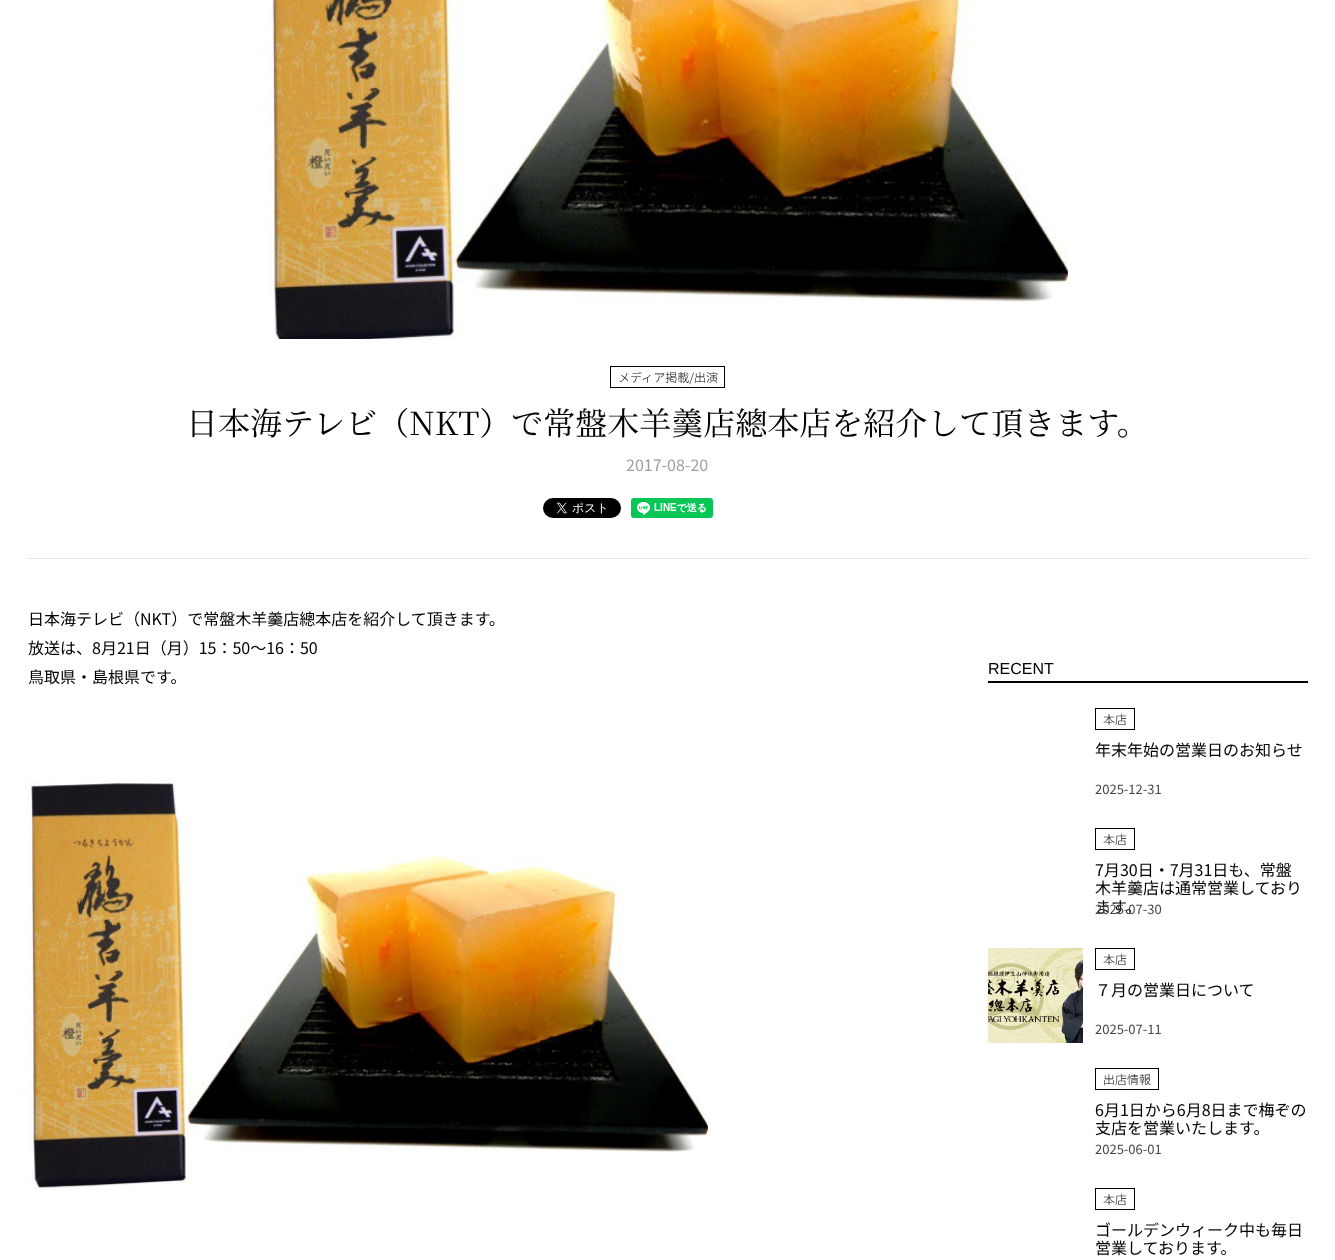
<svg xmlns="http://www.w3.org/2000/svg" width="1335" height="1260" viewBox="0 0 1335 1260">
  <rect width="100%" height="100%" fill="#ffffff"/>
  <rect x="28" y="558" width="1280" height="1" fill="#e6e6e6"/>
  <image x="268" y="0" width="800" height="339" href="img1.png"/>
  <rect x="610.5" y="366.5" width="114" height="21" fill="none" stroke="#000000"/>
  <text x="618" y="382" font-family="Noto Sans JP" font-size="12" font-weight="300" fill="#000000">メディア掲載/出演</text>
  <text x="186" y="435" font-family="Noto Serif JP" font-size="32" font-weight="200" fill="#000000">日本海テレビ（NKT）で常盤木羊羹店總本店を紹介して頂きます。</text>
  <text x="626" y="471" font-family="Noto Sans JP" font-size="16" fill="#a0a0a0">2017-08-20</text>
  <image x="543" y="498" width="78" height="20" href="img2.png"/>
  <image x="631" y="498" width="82" height="20" href="img3.png"/>
  <text x="28" y="625" font-family="Noto Sans JP" font-size="16" fill="#000000">日本海テレビ（NKT）で常盤木羊羹店總本店を紹介して頂きます。</text>
  <text x="28" y="654" font-family="Noto Sans JP" font-size="16" fill="#000000">放送は、8月21日（月）15：50～16：50</text>
  <text x="28" y="683" font-family="Noto Sans JP" font-size="16" fill="#000000">鳥取県・島根県です。</text>
  <image x="28" y="779" width="680" height="412" href="img4.png"/>
  <rect x="988" y="681" width="320" height="2" fill="#000000"/>
  <text x="988" y="674" font-family="Liberation Sans" font-size="16" fill="#000000">RECENT</text>
  <rect x="1095.5" y="708.5" width="39" height="21" fill="none" stroke="#000000"/>
  <text x="1103" y="724" font-family="Noto Sans JP" font-size="12" font-weight="300" fill="#000000">本店</text>
  <text x="1095" y="756" font-family="Noto Sans JP" font-size="16" fill="#000000">年末年始の営業日のお知らせ</text>
  <text x="1095" y="794" font-family="Noto Sans JP" font-size="13" fill="#464646">2025-12-31</text>
  <rect x="1095.5" y="828.5" width="39" height="21" fill="none" stroke="#000000"/>
  <text x="1103" y="844" font-family="Noto Sans JP" font-size="12" font-weight="300" fill="#000000">本店</text>
  <text x="1095" y="876" font-family="Noto Sans JP" font-size="16" fill="#000000">7月30日・7月31日も、常盤</text>
  <text x="1095" y="894" font-family="Noto Sans JP" font-size="16" fill="#000000">木羊羹店は通常営業しており</text>
  <text x="1095" y="913" font-family="Noto Sans JP" font-size="16" fill="#000000">ます。</text>
  <text x="1095" y="914" font-family="Noto Sans JP" font-size="13" fill="#464646">2025-07-30</text>
  <image x="988" y="948" width="95" height="95" href="img5.png"/>
  <rect x="1095.5" y="948.5" width="39" height="21" fill="none" stroke="#000000"/>
  <text x="1103" y="964" font-family="Noto Sans JP" font-size="12" font-weight="300" fill="#000000">本店</text>
  <text x="1095" y="996" font-family="Noto Sans JP" font-size="16" fill="#000000">７月の営業日について</text>
  <text x="1095" y="1034" font-family="Noto Sans JP" font-size="13" fill="#464646">2025-07-11</text>
  <rect x="1095.5" y="1068.5" width="63" height="21" fill="none" stroke="#000000"/>
  <text x="1103" y="1084" font-family="Noto Sans JP" font-size="12" font-weight="300" fill="#000000">出店情報</text>
  <text x="1095" y="1116" font-family="Noto Sans JP" font-size="16" fill="#000000">6月1日から6月8日まで梅ぞの</text>
  <text x="1095" y="1134" font-family="Noto Sans JP" font-size="16" fill="#000000">支店を営業いたします。</text>
  <text x="1095" y="1154" font-family="Noto Sans JP" font-size="13" fill="#464646">2025-06-01</text>
  <rect x="1095.5" y="1188.5" width="39" height="21" fill="none" stroke="#000000"/>
  <text x="1103" y="1204" font-family="Noto Sans JP" font-size="12" font-weight="300" fill="#000000">本店</text>
  <text x="1095" y="1236" font-family="Noto Sans JP" font-size="16" fill="#000000">ゴールデンウィーク中も毎日</text>
  <text x="1095" y="1254" font-family="Noto Sans JP" font-size="16" fill="#000000">営業しております。</text>
</svg>
